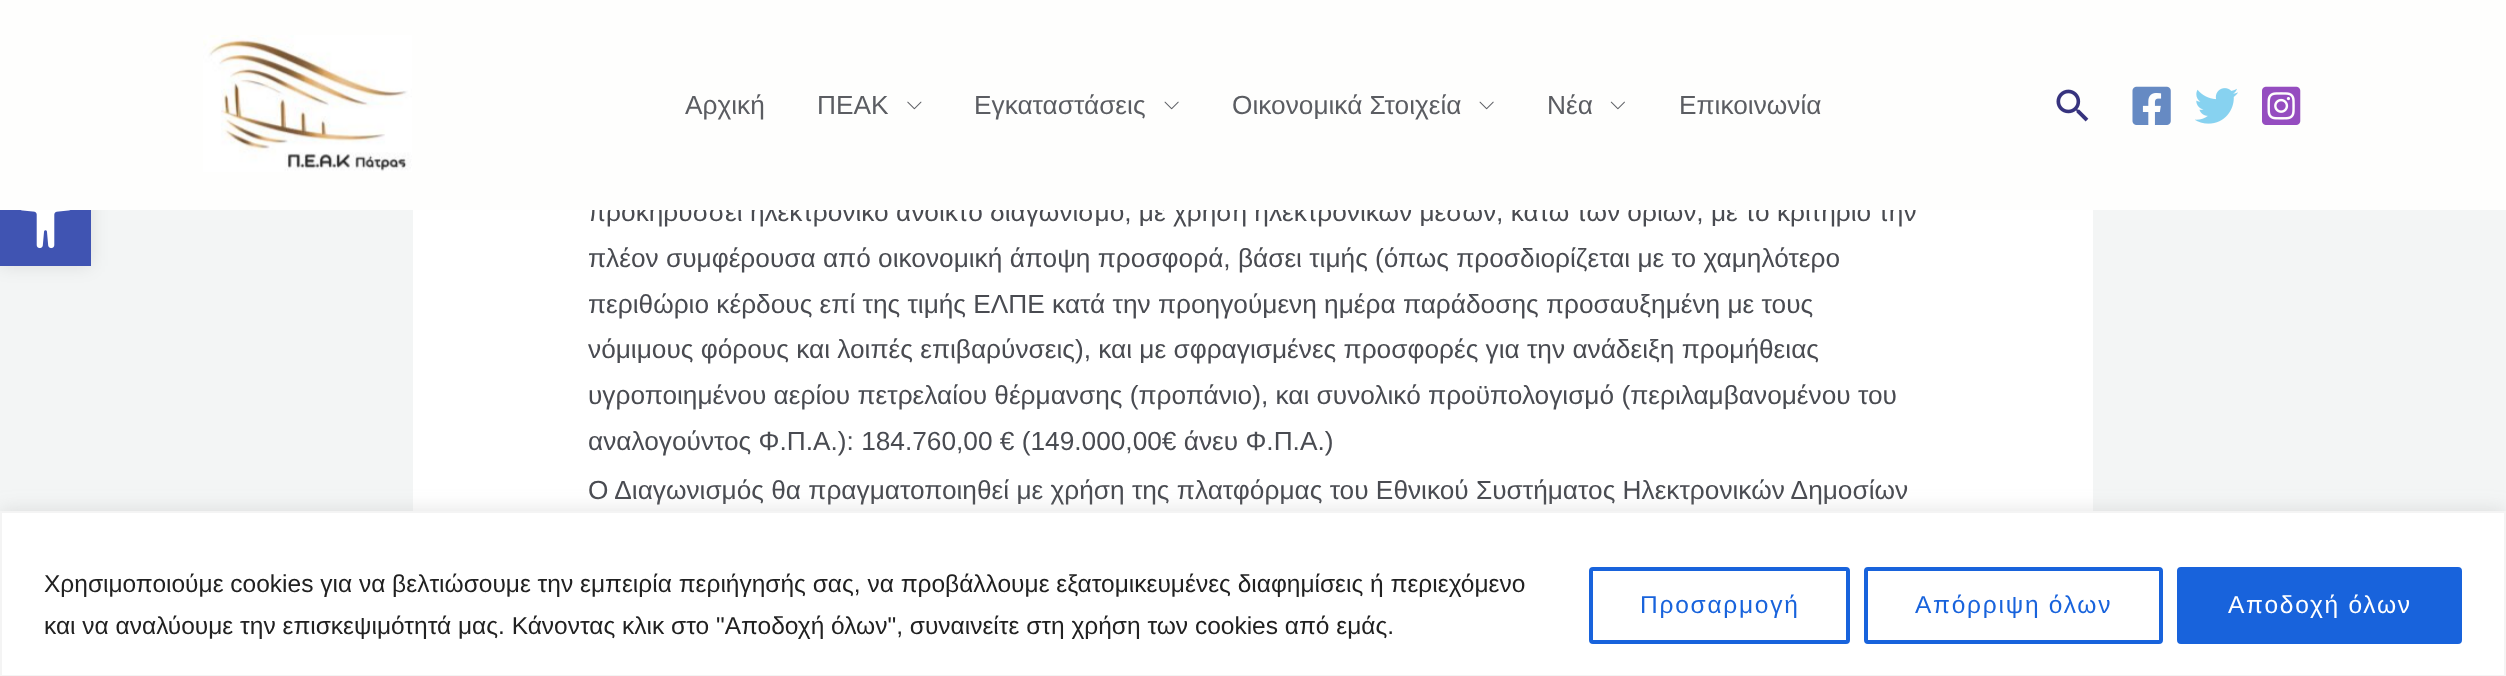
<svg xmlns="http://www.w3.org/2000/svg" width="2506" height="676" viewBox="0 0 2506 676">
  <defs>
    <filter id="blur1" x="-50%" y="-200%" width="200%" height="500%"><feGaussianBlur stdDeviation="9"/></filter>
  </defs>
  <rect width="100%" height="100%" fill="#f3f5f5"/>
  <rect x="0" y="175" width="91" height="91" fill="#000000" fill-opacity="0.1" filter="url(#blur1)"/>
  <rect x="0" y="210" width="91" height="56" fill="#4054b2"/>
  <image x="20" y="210" width="51" height="39" href="img1.png"/>
  <rect x="413" y="210" width="1680" height="301" fill="#ffffff"/>
  <text x="588" y="221" font-family="Liberation Sans" font-size="26.25" fill="#494b51">προκηρύσσει ηλεκτρονικό ανοικτό διαγωνισμό, με χρήση ηλεκτρονικών μέσων, κάτω των ορίων, με το κριτήριο την</text>
  <rect x="0" y="0" width="2506" height="210" fill="#fefefd"/>
  <image x="203" y="35" width="209" height="137" href="img2.png"/>
  <text x="685" y="114" font-family="Liberation Sans" font-size="26.25" fill="#5b5d62">Αρχική</text>
  <text x="817" y="114" font-family="Liberation Sans" font-size="26.25" fill="#5b5d62">ΠΕΑΚ</text>
  <image x="907" y="101" width="15" height="9" href="img3.png"/>
  <text x="974" y="114" font-family="Liberation Sans" font-size="26.25" fill="#5b5d62">Εγκαταστάσεις</text>
  <image x="1164" y="101" width="15" height="9" href="img4.png"/>
  <text x="1232" y="114" font-family="Liberation Sans" font-size="26.25" fill="#5b5d62">Οικονομικά Στοιχεία</text>
  <image x="1479" y="101" width="15" height="9" href="img4.png"/>
  <text x="1547" y="114" font-family="Liberation Sans" font-size="26.25" fill="#5b5d62">Νέα</text>
  <image x="1610" y="101" width="15" height="9" href="img5.png"/>
  <text x="1679" y="114" font-family="Liberation Sans" font-size="26.25" fill="#5b5d62">Επικοινωνία</text>
  <image x="2056" y="89" width="33" height="33" href="img6.png"/>
  <image x="2132" y="86" width="39" height="39" href="img7.png"/>
  <image x="2195" y="88" width="43" height="36" href="img8.png"/>
  <image x="2262" y="86" width="39" height="39" href="img9.png"/>
  <text x="588" y="267" font-family="Liberation Sans" font-size="26.25" fill="#494b51">πλέον συμφέρουσα από οικονομική άποψη προσφορά, βάσει τιμής (όπως προσδιορίζεται με το χαμηλότερο</text>
  <text x="588" y="313" font-family="Liberation Sans" font-size="26.25" fill="#494b51">περιθώριο κέρδους επί της τιμής ΕΛΠΕ κατά την προηγούμενη ημέρα παράδοσης προσαυξημένη με τους</text>
  <text x="588" y="358" font-family="Liberation Sans" font-size="26.25" fill="#494b51">νόμιμους φόρους και λοιπές επιβαρύνσεις), και με σφραγισμένες προσφορές για την ανάδειξη προμήθειας</text>
  <text x="588" y="404" font-family="Liberation Sans" font-size="26.25" fill="#494b51">υγροποιημένου αερίου πετρελαίου θέρμανσης (προπάνιο), και συνολικό προϋπολογισμό (περιλαμβανομένου του</text>
  <text x="588" y="450" font-family="Liberation Sans" font-size="26.25" fill="#494b51">αναλογούντος Φ.Π.Α.): 184.760,00 € (149.000,00€ άνευ Φ.Π.Α.)</text>
  <text x="588" y="499" font-family="Liberation Sans" font-size="26.25" fill="#494b51">Ο Διαγωνισμός θα πραγματοποιηθεί με χρήση της πλατφόρμας του Εθνικού Συστήματος Ηλεκτρονικών Δημοσίων</text>
  <rect x="0" y="509" width="2506" height="167" fill="#acabab" fill-opacity="0.3" filter="url(#blur1)"/>
  <rect x="1" y="512" width="2504" height="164" fill="#ffffff" stroke="#f4f4f4" stroke-width="2"/>
  <text x="44" y="592" font-family="Liberation Sans" font-size="24.5" fill="#212121">Χρησιμοποιούμε cookies για να βελτιώσουμε την εμπειρία περιήγησής σας, να προβάλλουμε εξατομικευμένες διαφημίσεις ή περιεχόμενο</text>
  <text x="44" y="634" font-family="Liberation Sans" font-size="24.5" fill="#212121">και να αναλύουμε την επισκεψιμότητά μας. Κάνοντας κλικ στο "Αποδοχή όλων", συναινείτε στη χρήση των cookies από εμάς.</text>
  <rect x="1591" y="569" width="257" height="73" rx="2" fill="none" stroke="#1863dc" stroke-width="4"/>
  <text x="1640" y="613" font-family="Liberation Sans" font-size="24.5" letter-spacing="1.75" fill="#1863dc">Προσαρμογή</text>
  <rect x="1866" y="569" width="295" height="73" rx="2" fill="none" stroke="#1863dc" stroke-width="4"/>
  <text x="1915" y="613" font-family="Liberation Sans" font-size="24.5" letter-spacing="1.75" fill="#1863dc">Απόρριψη όλων</text>
  <rect x="2179" y="569" width="281" height="73" rx="2" fill="#1863dc" stroke="#1863dc" stroke-width="4"/>
  <text x="2228" y="613" font-family="Liberation Sans" font-size="24.5" letter-spacing="1.75" fill="#ffffff">Αποδοχή όλων</text>
</svg>
